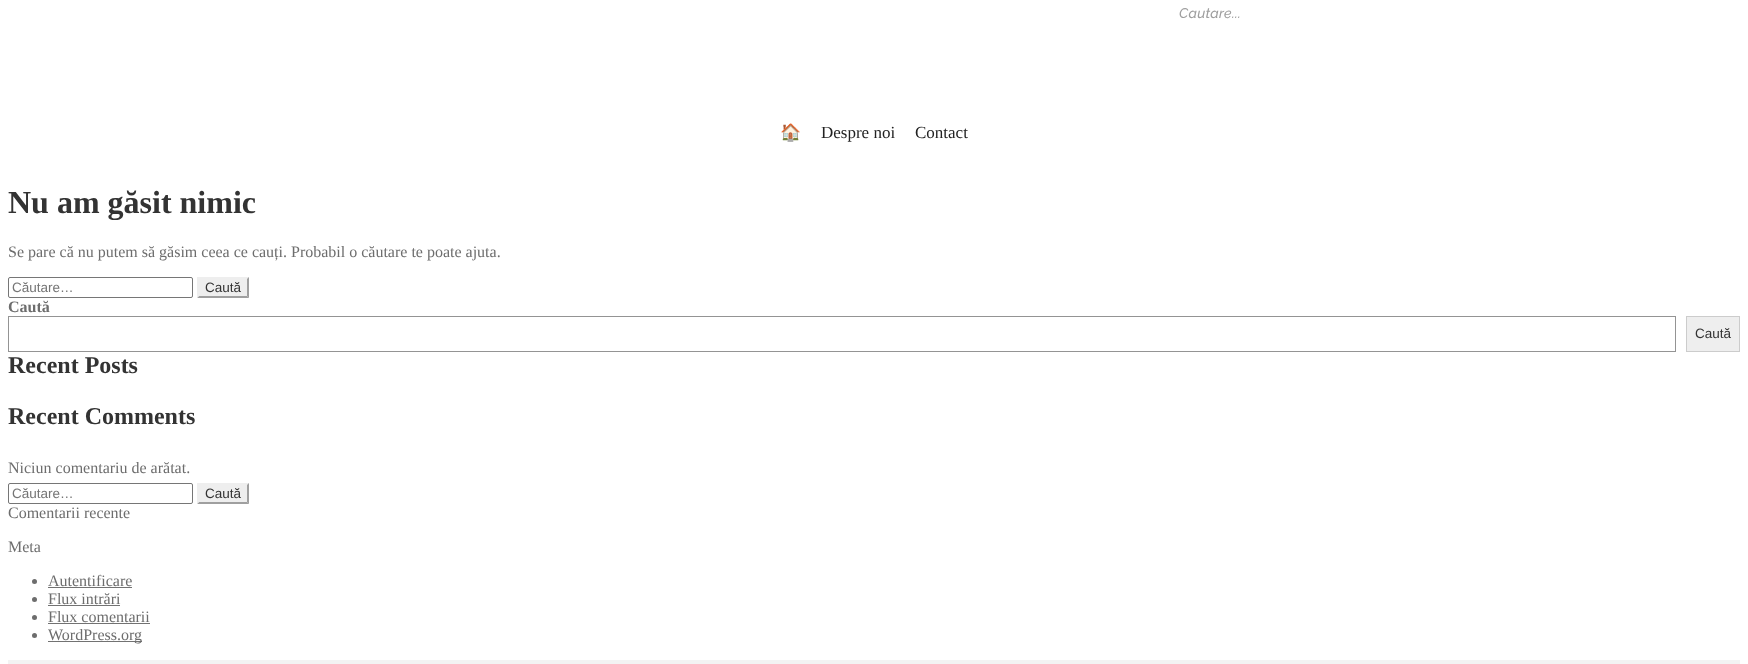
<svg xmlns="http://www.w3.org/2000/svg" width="1748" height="664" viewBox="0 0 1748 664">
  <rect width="100%" height="100%" fill="#ffffff"/>
  <text x="1179" y="18" font-family="Raleway" font-size="14" font-weight="500" font-style="italic" letter-spacing="0.25" fill="#9e9e9e">Cautare...</text>
  <text x="780" y="138" font-family="Noto Color Emoji" font-size="17" fill="#222222">🏠</text>
  <text x="821" y="138" font-family="Liberation Serif" font-size="17" fill="#222222">Despre noi</text>
  <text x="915" y="138" font-family="Liberation Serif" font-size="17" fill="#222222">Contact</text>
  <text x="8" y="213" font-family="Liberation Serif" font-size="32" font-weight="bold" fill="#333333">Nu am găsit nimic</text>
  <text x="8" y="257" font-family="Liberation Serif" font-size="16" fill="#6d6d6d">Se pare că nu putem să găsim ceea ce cauți. Probabil o căutare te poate ajuta.</text>
  <rect x="8.5" y="277.5" width="184" height="20" rx="1.5" fill="none" stroke="#767676"/>
  <text x="12" y="292" font-family="Liberation Sans" font-size="13.5" fill="#757575">Căutare…</text>
  <rect x="197" y="277" width="52" height="21" fill="#eeeeee"/>
  <path d="M249 277V298L247 296V279Z" fill="#9f9f9f"/>
  <path d="M249 298H197L199 296H247Z" fill="#9f9f9f"/>
  <path d="M197 298V277L199 279V296Z" fill="#eeeeee"/>
  <text x="205" y="292" font-family="Liberation Sans" font-size="13.5" fill="#333333">Caută</text>
  <text x="8" y="312" font-family="Liberation Serif" font-size="16" font-weight="bold" fill="#6d6d6d">Caută</text>
  <rect x="8.5" y="316.5" width="1667" height="35" fill="none" stroke="#949494"/>
  <rect x="1686.5" y="316.5" width="53" height="35" fill="#eeeeee" stroke="#cccccc"/>
  <text x="1695" y="338" font-family="Liberation Sans" font-size="13.5" fill="#333333">Caută</text>
  <text x="8" y="373" font-family="Liberation Serif" font-size="24" font-weight="bold" fill="#333333">Recent Posts</text>
  <text x="8" y="424" font-family="Liberation Serif" font-size="24" font-weight="bold" fill="#333333">Recent Comments</text>
  <text x="8" y="473" font-family="Liberation Serif" font-size="16" fill="#6d6d6d">Niciun comentariu de arătat.</text>
  <rect x="8.5" y="483.5" width="184" height="20" rx="1.5" fill="none" stroke="#767676"/>
  <text x="12" y="498" font-family="Liberation Sans" font-size="13.5" fill="#757575">Căutare…</text>
  <rect x="197" y="483" width="52" height="21" fill="#eeeeee"/>
  <path d="M249 483V504L247 502V485Z" fill="#9f9f9f"/>
  <path d="M249 504H197L199 502H247Z" fill="#9f9f9f"/>
  <path d="M197 504V483L199 485V502Z" fill="#eeeeee"/>
  <text x="205" y="498" font-family="Liberation Sans" font-size="13.5" fill="#333333">Caută</text>
  <text x="8" y="518" font-family="Liberation Serif" font-size="16" fill="#6d6d6d">Comentarii recente</text>
  <text x="8" y="552" font-family="Liberation Serif" font-size="16" fill="#6d6d6d">Meta</text>
  <circle cx="34.5" cy="581.5" r="2.5" fill="#6d6d6d"/>
  <text x="48" y="586" font-family="Liberation Serif" font-size="16" fill="#6d6d6d">Autentificare</text>
  <rect x="48" y="587" width="84" height="1" fill="#727272"/>
  <circle cx="34.5" cy="599.5" r="2.5" fill="#6d6d6d"/>
  <text x="48" y="604" font-family="Liberation Serif" font-size="16" fill="#6d6d6d">Flux intrări</text>
  <rect x="48" y="605" width="72" height="1" fill="#727272"/>
  <circle cx="34.5" cy="617.5" r="2.5" fill="#6d6d6d"/>
  <text x="48" y="622" font-family="Liberation Serif" font-size="16" fill="#6d6d6d">Flux comentarii</text>
  <rect x="48" y="623" width="102" height="1" fill="#727272"/>
  <circle cx="34.5" cy="635.5" r="2.5" fill="#6d6d6d"/>
  <rect x="48" y="641" width="94" height="1" fill="#727272"/>
  <text x="48" y="640" font-family="Liberation Serif" font-size="16" fill="#6d6d6d">WordPress.org</text>
  <rect x="8" y="660" width="1732" height="4" fill="#f3f3f3"/>
</svg>
